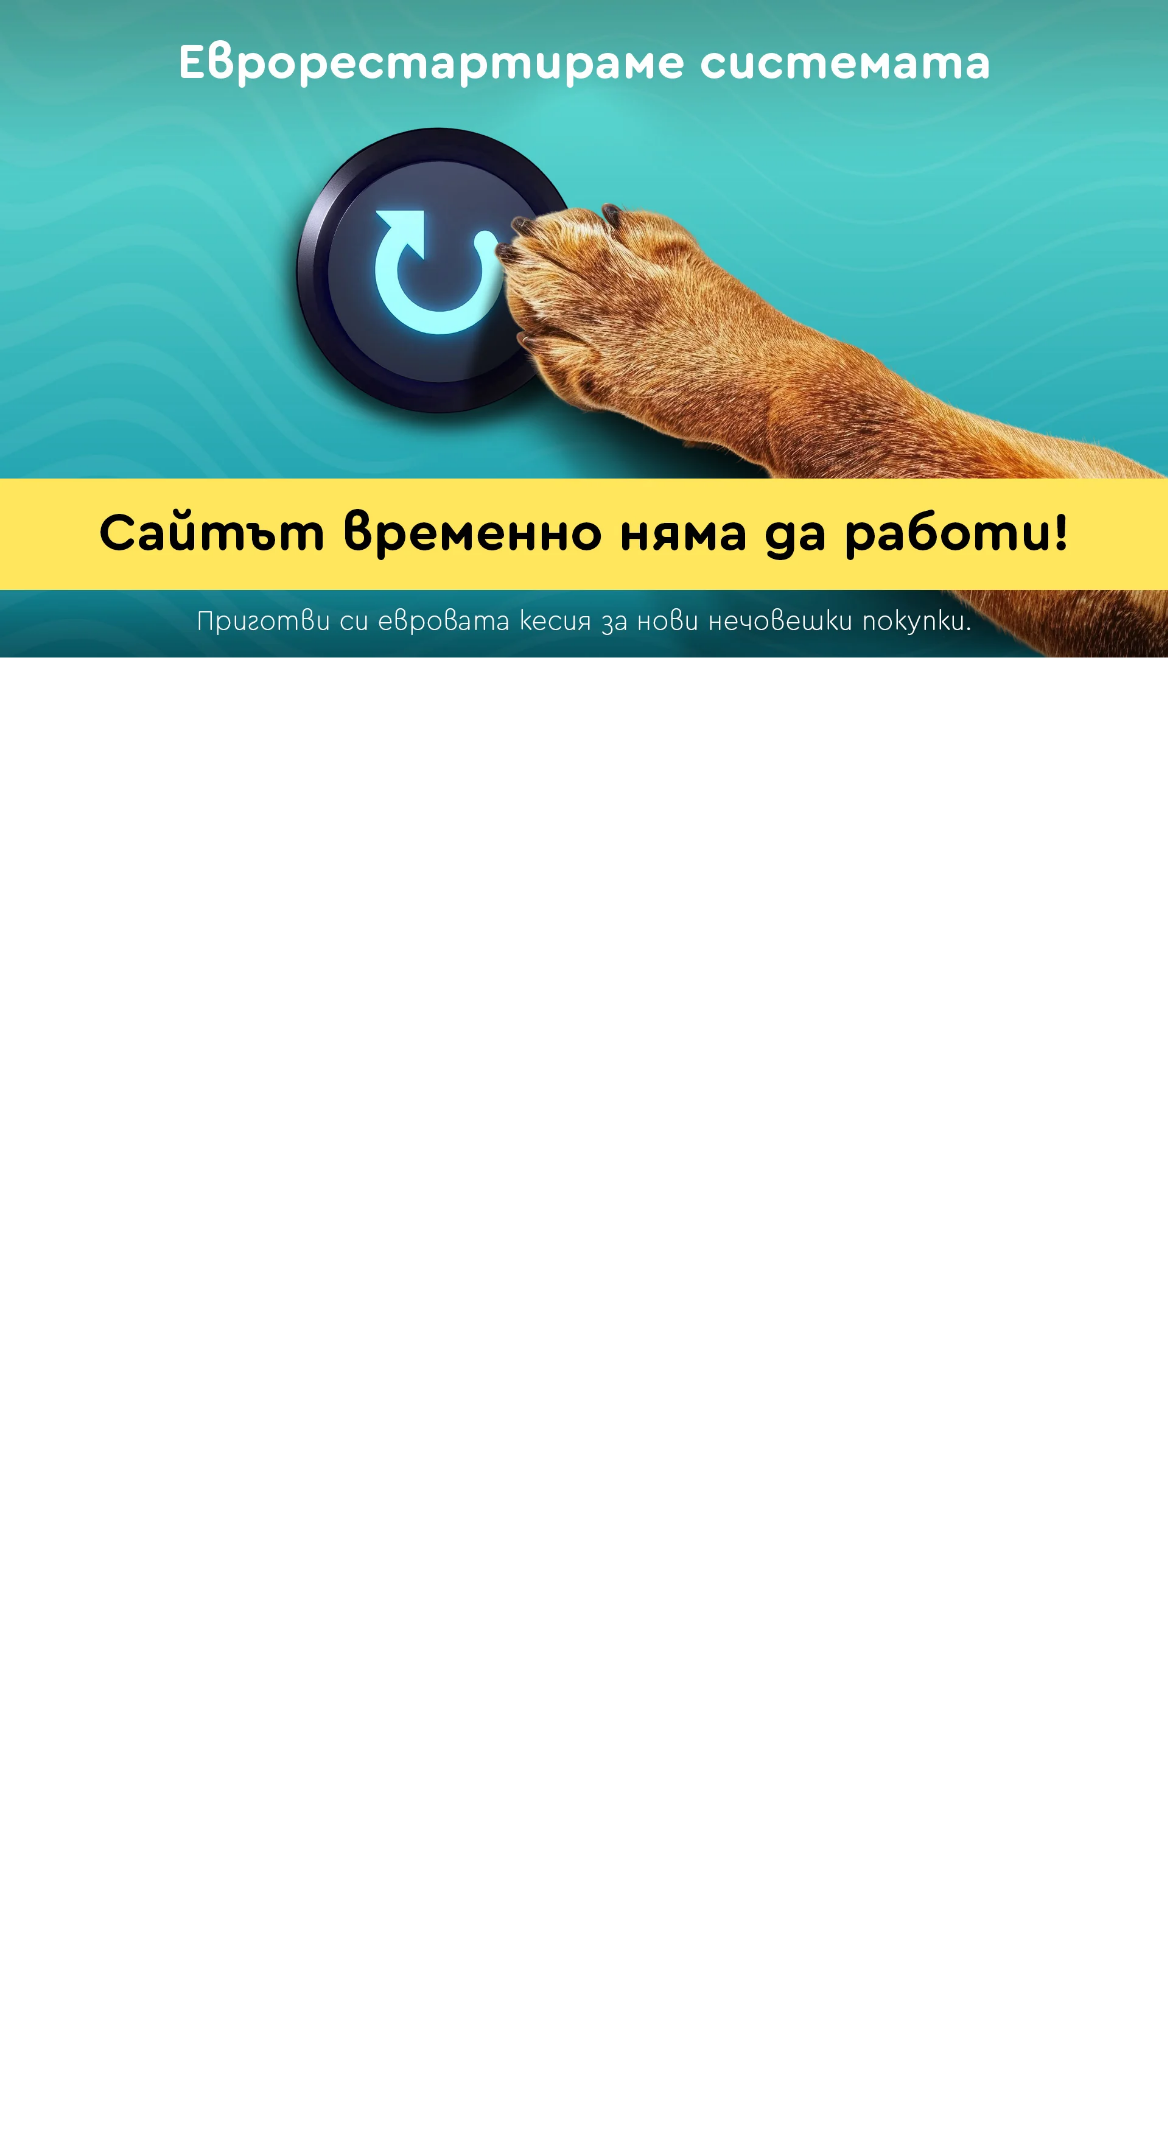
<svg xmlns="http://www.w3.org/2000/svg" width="1168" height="2156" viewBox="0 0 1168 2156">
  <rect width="100%" height="100%" fill="#ffffff"/>
  <image x="0" y="0" width="1168" height="658" href="img1.png"/>
</svg>
